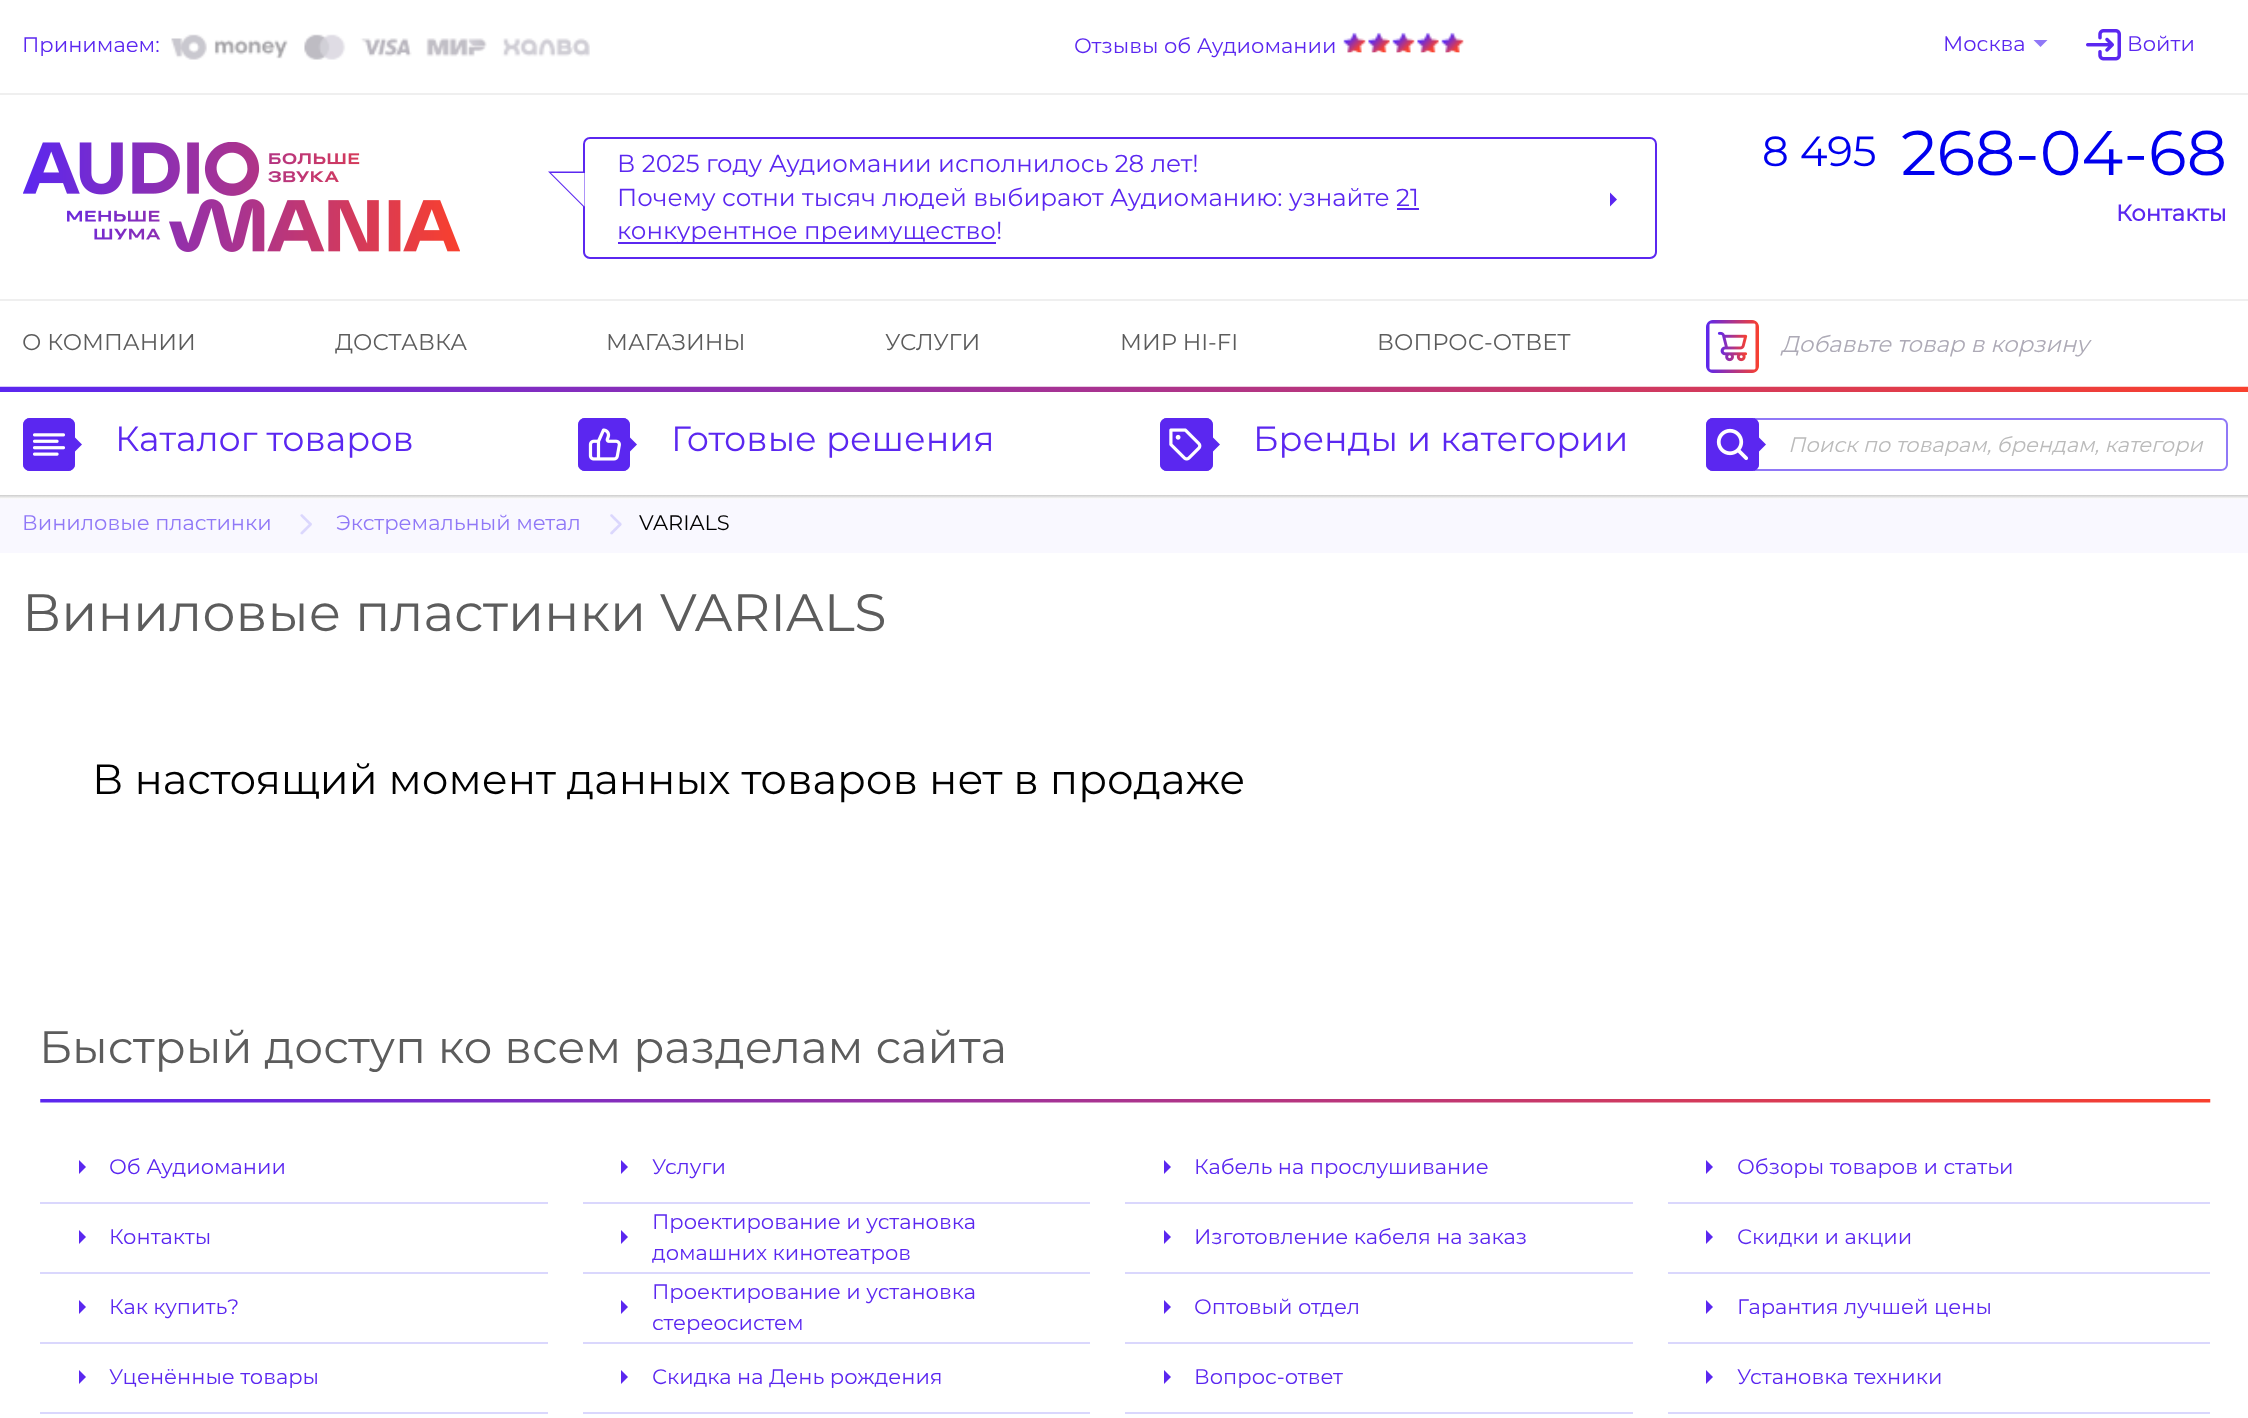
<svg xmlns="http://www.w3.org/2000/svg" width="2248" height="1418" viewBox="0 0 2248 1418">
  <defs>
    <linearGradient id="g1" gradientUnits="userSpaceOnUse" x1="1124" y1="495" x2="1124" y2="499"><stop offset="0" stop-color="#cccccc"/><stop offset="1" stop-color="#ffffff"/></linearGradient>
  </defs>
  <rect width="100%" height="100%" fill="#ffffff"/>
  <rect x="0" y="93" width="2248" height="2" fill="#efefef"/>
  <text x="22" y="52" font-family="Montserrat" font-size="21" font-weight="100" fill="#5b27f0">Принимаем:</text>
  <image x="171" y="34" width="419" height="26" href="img1.png"/>
  <text x="1074" y="53" font-family="Montserrat" font-size="21" font-weight="100" fill="#5b27f0">Отзывы об Аудиомании</text>
  <image x="1343" y="32" width="121" height="21" href="img2.png"/>
  <text x="1943" y="51" font-family="Montserrat" font-size="21" font-weight="100" fill="#5b27f0">Москва</text>
  <path d="M2033.5 40H2047.5L2040.5 47Z" fill="#9078f7"/>
  <image x="2086" y="29" width="35" height="32" href="img3.png"/>
  <text x="2127" y="51" font-family="Montserrat" font-size="21" font-weight="100" fill="#5b27f0">Войти</text>
  <rect x="0" y="299" width="2248" height="2" fill="#efefef"/>
  <image x="23" y="142" width="437" height="110" href="img4.png"/>
  <rect x="584" y="138" width="1072" height="120" rx="6" fill="none" stroke="#5b27f0" stroke-width="2"/>
  <path d="M584.5 171.5V208L548 171.5Z" fill="#5b27f0"/>
  <text x="617" y="172" font-family="Montserrat" font-size="24.5" font-weight="100" fill="#5b27f0">В 2025 году Аудиомании исполнилось 28 лет!</text>
  <text x="617" y="206" font-family="Montserrat" font-size="24.5" font-weight="100" fill="#5b27f0">Почему сотни тысяч людей выбирают Аудиоманию: узнайте 21</text>
  <rect x="618" y="242" width="378" height="2" fill="#5b27f0"/>
  <text x="617" y="239" font-family="Montserrat" font-size="24.5" font-weight="100" fill="#5b27f0">конкурентное преимущество!</text>
  <rect x="1397" y="208" width="22" height="2" fill="#5b27f0"/>
  <path d="M584.5 173V206.5L551 173Z" fill="#ffffff"/>
  <path d="M1610 206.5V192.5L1617 199.5Z" fill="#5b27f0"/>
  <text x="1762" y="166" font-family="Montserrat" font-size="42" font-weight="100" fill="#0000ee">8 495</text>
  <text x="1901" y="175" font-family="Montserrat" font-size="63" font-weight="100" fill="#0000ee">268-04-68</text>
  <text x="2116" y="221" font-family="Montserrat" font-size="22.75" font-weight="bold" fill="#5b27f0">Контакты</text>
  <image x="0" y="386" width="2248" height="6" href="img5.png"/>
  <text x="22" y="350" font-family="Montserrat" font-size="22.75" font-weight="100" fill="#5c5c5c">О КОМПАНИИ</text>
  <text x="335" y="350" font-family="Montserrat" font-size="22.75" font-weight="100" fill="#5c5c5c">ДОСТАВКА</text>
  <text x="606" y="350" font-family="Montserrat" font-size="22.75" font-weight="100" fill="#5c5c5c">МАГАЗИНЫ</text>
  <text x="885" y="350" font-family="Montserrat" font-size="22.75" font-weight="100" fill="#5c5c5c">УСЛУГИ</text>
  <text x="1120" y="350" font-family="Montserrat" font-size="22.75" font-weight="100" fill="#5c5c5c">МИР HI-FI</text>
  <text x="1377" y="350" font-family="Montserrat" font-size="22.75" font-weight="100" fill="#5c5c5c">ВОПРОС-ОТВЕТ</text>
  <image x="1706" y="320" width="53" height="53" href="img6.png"/>
  <text x="1781" y="352" font-family="Montserrat" font-size="22.75" font-weight="100" font-style="italic" fill="#adaab6">Добавьте товар в корзину</text>
  <rect x="23" y="418" width="52" height="53" rx="7" fill="#5b27f0"/>
  <image x="33" y="433" width="32" height="23" href="img7.png"/>
  <rect x="24" y="419" width="50" height="51" rx="6" fill="none" stroke="#5b27f0" stroke-width="2"/>
  <path d="M75 451.5V437.5L82 444.5Z" fill="#5b27f0"/>
  <text x="115" y="451" font-family="Montserrat" font-size="35" font-weight="100" fill="#5b27f0">Каталог товаров</text>
  <rect x="578" y="418" width="52" height="53" rx="7" fill="#5b27f0"/>
  <image x="588" y="428" width="33" height="33" href="img8.png"/>
  <rect x="579" y="419" width="50" height="51" rx="6" fill="none" stroke="#5b27f0" stroke-width="2"/>
  <path d="M630 451.5V437.5L637 444.5Z" fill="#5b27f0"/>
  <text x="671" y="451" font-family="Montserrat" font-size="35" font-weight="100" fill="#5b27f0">Готовые решения</text>
  <rect x="1160" y="418" width="53" height="53" rx="7" fill="#5b27f0"/>
  <image x="1169" y="428" width="33" height="33" href="img9.png"/>
  <rect x="1161" y="419" width="51" height="51" rx="6" fill="none" stroke="#5b27f0" stroke-width="2"/>
  <path d="M1213 451.5V437.5L1220 444.5Z" fill="#5b27f0"/>
  <text x="1253" y="451" font-family="Montserrat" font-size="35" font-weight="100" fill="#5b27f0">Бренды и категории</text>
  <path d="M1754 418H2221C2225 418 2228 421 2228 425V464C2228 468 2225 471 2221 471H1754ZM1754 420H2221C2224 420 2226 422 2226 425V464C2226 467 2224 469 2221 469H1754Z" fill="#9078f7" fill-rule="evenodd"/>
  <rect x="1706" y="418" width="53" height="53" rx="7" fill="#5b27f0"/>
  <image x="1716" y="428" width="33" height="33" href="img10.png"/>
  <rect x="1707" y="419" width="51" height="51" rx="6" fill="none" stroke="#5b27f0" stroke-width="2"/>
  <path d="M1759 451.5V437.5L1766 444.5Z" fill="#5b27f0"/>
  <text x="1788" y="452" font-family="Montserrat" font-size="21" font-weight="100" font-style="italic" fill="#bbbbbb">Поиск по товарам, брендам, категори</text>
  <rect x="0" y="495" width="2248" height="4" fill="url(#g1)"/>
  <rect x="0" y="499" width="2248" height="54" fill="#f9f8ff"/>
  <text x="22" y="530" font-family="Montserrat" font-size="21" font-weight="100" fill="#9078f7">Виниловые пластинки</text>
  <image x="300" y="514" width="12" height="21" href="img11.png"/>
  <text x="336" y="530" font-family="Montserrat" font-size="21" font-weight="100" fill="#9078f7">Экстремальный метал</text>
  <image x="610" y="514" width="12" height="21" href="img12.png"/>
  <text x="639" y="530" font-family="Montserrat" font-size="21" font-weight="100" fill="#000000">VARIALS</text>
  <text x="22" y="631" font-family="Montserrat" font-size="52.5" font-weight="100" fill="#5c5c5c">Виниловые пластинки VARIALS</text>
  <text x="92" y="794" font-family="Montserrat" font-size="42" font-weight="100" fill="#000000">В настоящий момент данных товаров нет в продаже</text>
  <image x="40" y="1099" width="2171" height="4" href="img13.png"/>
  <text x="39" y="1063" font-family="Montserrat" font-size="45.5" font-weight="100" fill="#5c5c5c">Быстрый доступ ко всем разделам сайта</text>
  <rect x="40" y="1202" width="508" height="2" fill="#dad7fd"/>
  <path d="M79 1174V1160L86 1167Z" fill="#5b27f0"/>
  <text x="109" y="1174" font-family="Montserrat" font-size="21" font-weight="100" fill="#5b27f0">Об Аудиомании</text>
  <rect x="583" y="1202" width="507" height="2" fill="#dad7fd"/>
  <path d="M621 1174V1160L628 1167Z" fill="#5b27f0"/>
  <text x="652" y="1174" font-family="Montserrat" font-size="21" font-weight="100" fill="#5b27f0">Услуги</text>
  <rect x="1125" y="1202" width="508" height="2" fill="#dad7fd"/>
  <path d="M1164 1174V1160L1171 1167Z" fill="#5b27f0"/>
  <text x="1194" y="1174" font-family="Montserrat" font-size="21" font-weight="100" fill="#5b27f0">Кабель на прослушивание</text>
  <rect x="1668" y="1202" width="542" height="2" fill="#dad7fd"/>
  <path d="M1706 1174V1160L1713 1167Z" fill="#5b27f0"/>
  <text x="1737" y="1174" font-family="Montserrat" font-size="21" font-weight="100" fill="#5b27f0">Обзоры товаров и статьи</text>
  <rect x="40" y="1272" width="508" height="2" fill="#dad7fd"/>
  <path d="M79 1244V1230L86 1237Z" fill="#5b27f0"/>
  <text x="109" y="1244" font-family="Montserrat" font-size="21" font-weight="100" fill="#5b27f0">Контакты</text>
  <rect x="583" y="1272" width="507" height="2" fill="#dad7fd"/>
  <text x="652" y="1229" font-family="Montserrat" font-size="21" font-weight="100" fill="#5b27f0">Проектирование и установка</text>
  <path d="M621 1244V1230L628 1237Z" fill="#5b27f0"/>
  <text x="652" y="1260" font-family="Montserrat" font-size="21" font-weight="100" fill="#5b27f0">домашних кинотеатров</text>
  <rect x="1125" y="1272" width="508" height="2" fill="#dad7fd"/>
  <path d="M1164 1244V1230L1171 1237Z" fill="#5b27f0"/>
  <text x="1194" y="1244" font-family="Montserrat" font-size="21" font-weight="100" fill="#5b27f0">Изготовление кабеля на заказ</text>
  <rect x="1668" y="1272" width="542" height="2" fill="#dad7fd"/>
  <path d="M1706 1244V1230L1713 1237Z" fill="#5b27f0"/>
  <text x="1737" y="1244" font-family="Montserrat" font-size="21" font-weight="100" fill="#5b27f0">Скидки и акции</text>
  <rect x="40" y="1342" width="508" height="2" fill="#dad7fd"/>
  <path d="M79 1314V1300L86 1307Z" fill="#5b27f0"/>
  <text x="109" y="1314" font-family="Montserrat" font-size="21" font-weight="100" fill="#5b27f0">Как купить?</text>
  <rect x="583" y="1342" width="507" height="2" fill="#dad7fd"/>
  <text x="652" y="1299" font-family="Montserrat" font-size="21" font-weight="100" fill="#5b27f0">Проектирование и установка</text>
  <path d="M621 1314V1300L628 1307Z" fill="#5b27f0"/>
  <text x="652" y="1330" font-family="Montserrat" font-size="21" font-weight="100" fill="#5b27f0">стереосистем</text>
  <rect x="1125" y="1342" width="508" height="2" fill="#dad7fd"/>
  <path d="M1164 1314V1300L1171 1307Z" fill="#5b27f0"/>
  <text x="1194" y="1314" font-family="Montserrat" font-size="21" font-weight="100" fill="#5b27f0">Оптовый отдел</text>
  <rect x="1668" y="1342" width="542" height="2" fill="#dad7fd"/>
  <path d="M1706 1314V1300L1713 1307Z" fill="#5b27f0"/>
  <text x="1737" y="1314" font-family="Montserrat" font-size="21" font-weight="100" fill="#5b27f0">Гарантия лучшей цены</text>
  <rect x="40" y="1412" width="508" height="2" fill="#dad7fd"/>
  <path d="M79 1384V1370L86 1377Z" fill="#5b27f0"/>
  <text x="109" y="1384" font-family="Montserrat" font-size="21" font-weight="100" fill="#5b27f0">Уценённые товары</text>
  <rect x="583" y="1412" width="507" height="2" fill="#dad7fd"/>
  <path d="M621 1384V1370L628 1377Z" fill="#5b27f0"/>
  <text x="652" y="1384" font-family="Montserrat" font-size="21" font-weight="100" fill="#5b27f0">Скидка на День рождения</text>
  <rect x="1125" y="1412" width="508" height="2" fill="#dad7fd"/>
  <path d="M1164 1384V1370L1171 1377Z" fill="#5b27f0"/>
  <text x="1194" y="1384" font-family="Montserrat" font-size="21" font-weight="100" fill="#5b27f0">Вопрос-ответ</text>
  <rect x="1668" y="1412" width="542" height="2" fill="#dad7fd"/>
  <path d="M1706 1384V1370L1713 1377Z" fill="#5b27f0"/>
  <text x="1737" y="1384" font-family="Montserrat" font-size="21" font-weight="100" fill="#5b27f0">Установка техники</text>
</svg>
